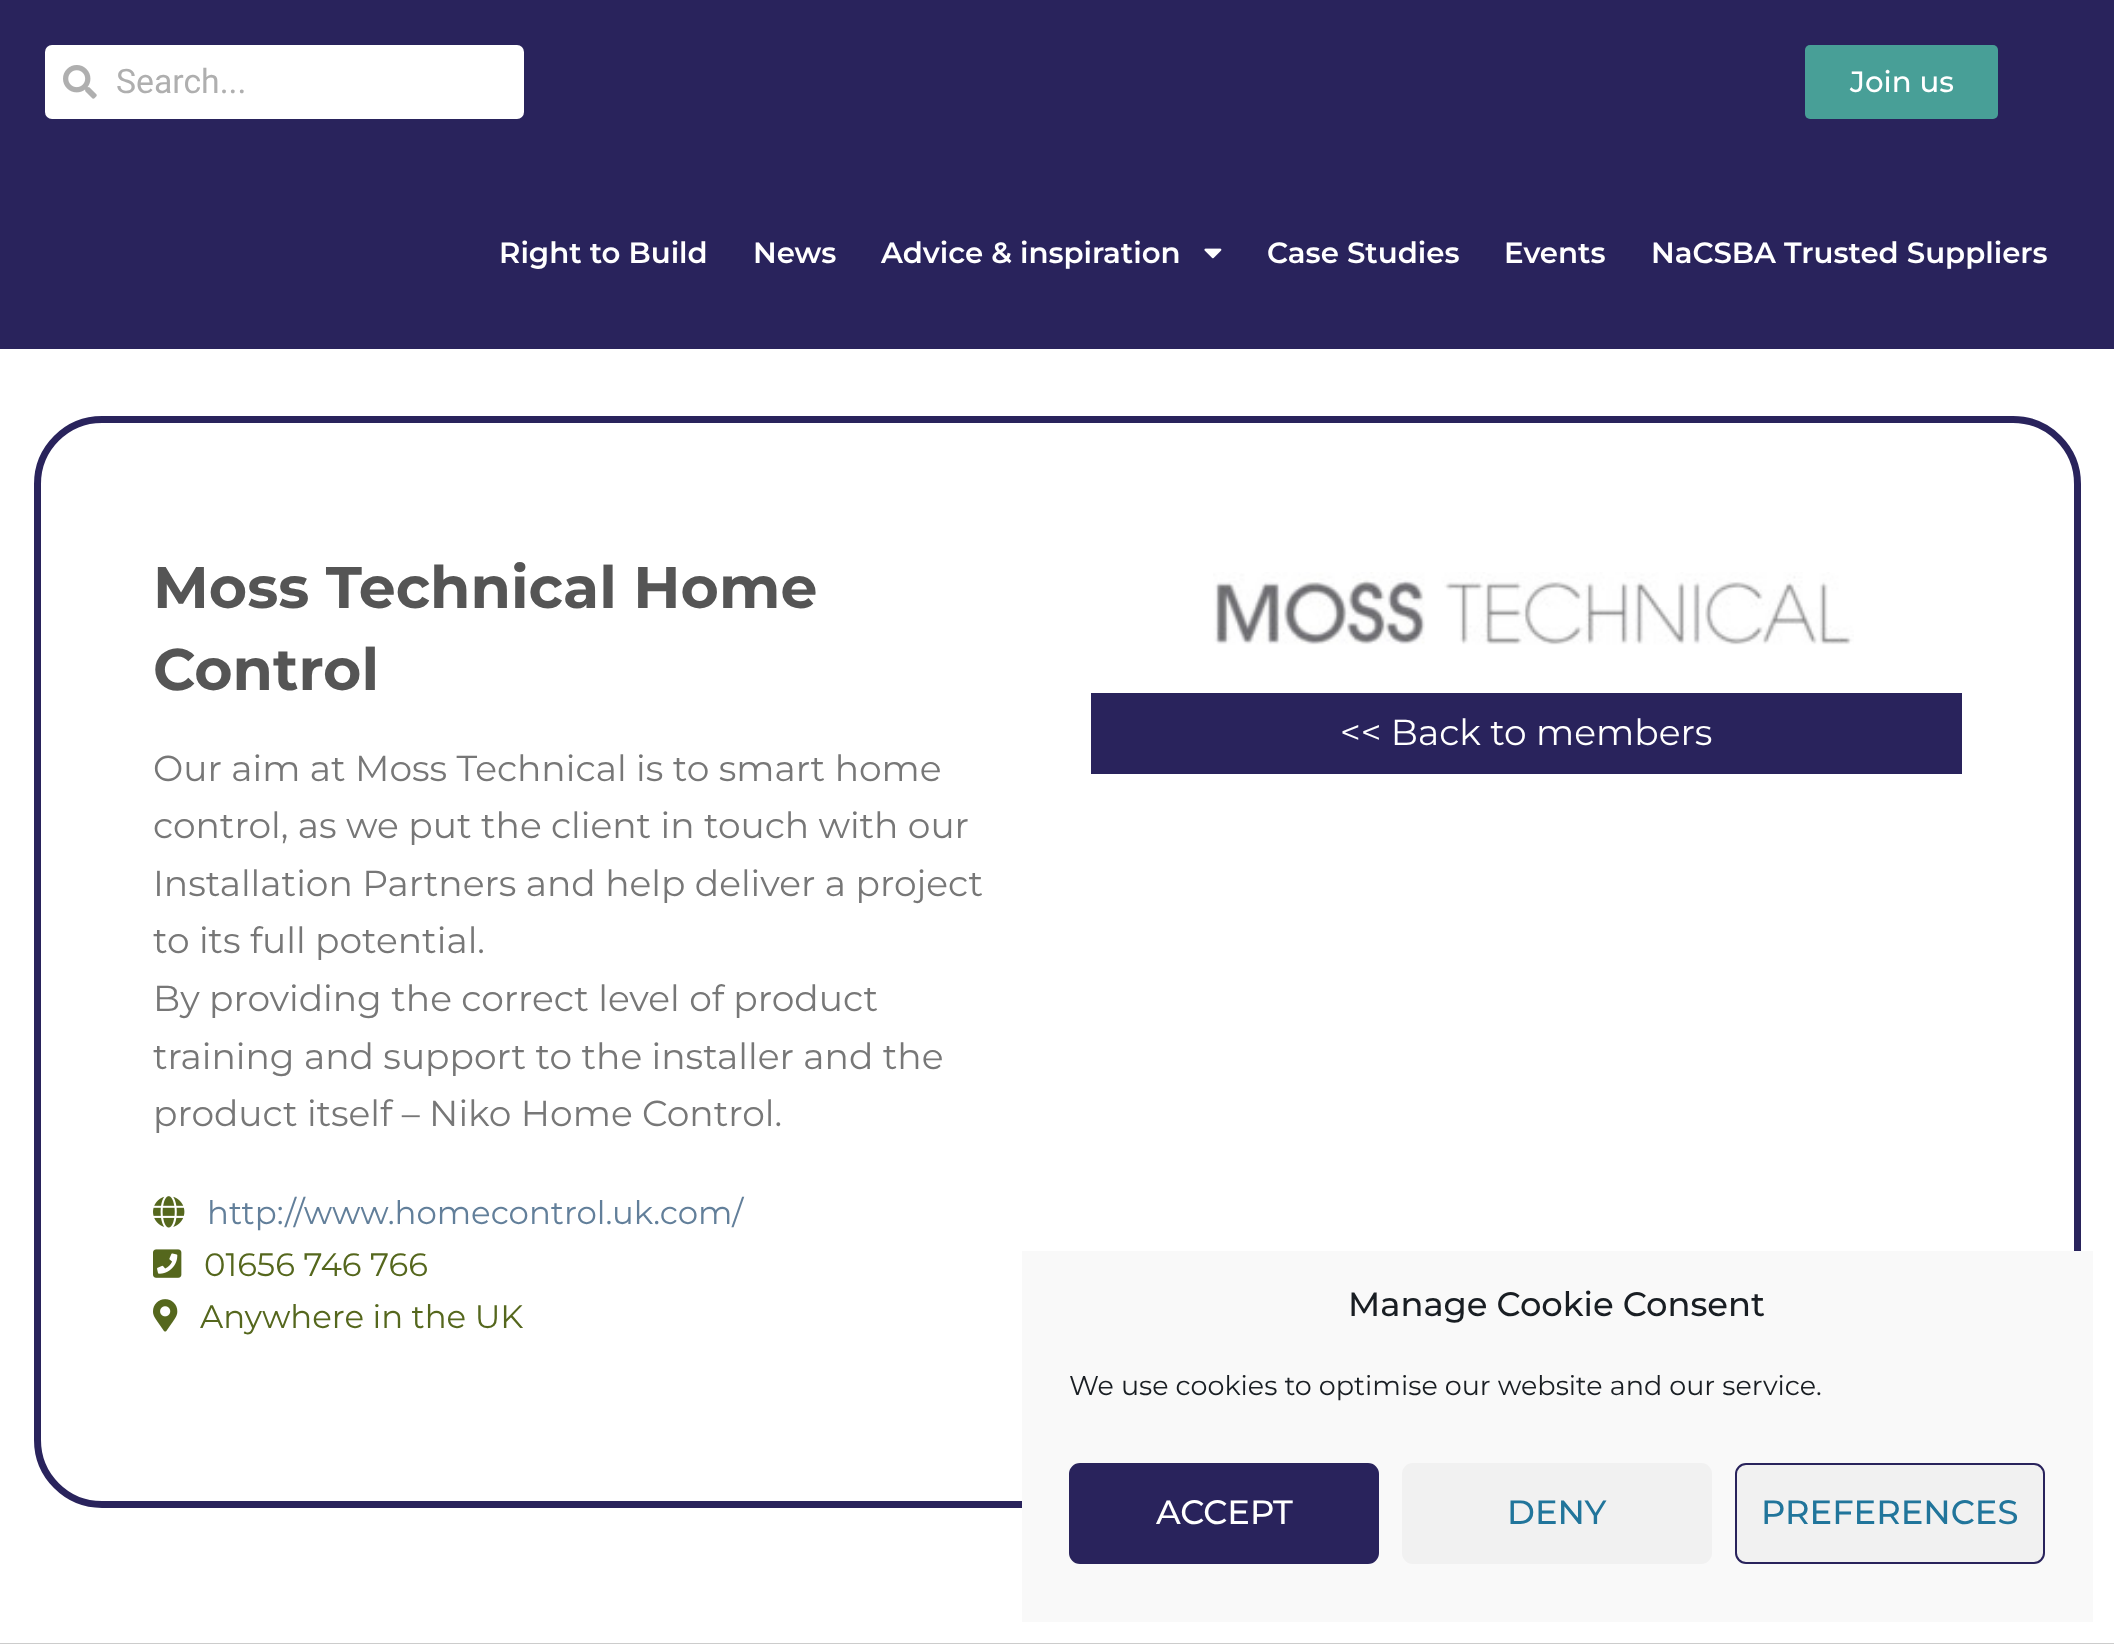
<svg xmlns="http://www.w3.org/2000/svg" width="2114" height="1644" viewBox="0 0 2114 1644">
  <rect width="100%" height="100%" fill="#cccccc"/>
  <rect x="0" y="0" width="2114" height="349" fill="#29235c"/>
  <rect x="45" y="45" width="479" height="74" rx="7" fill="#ffffff"/>
  <image x="63" y="65" width="34" height="34" href="img1.png"/>
  <text x="116" y="93" font-family="Roboto" font-size="33.75" fill="#afafaf">Search...</text>
  <rect x="1805" y="45" width="193" height="74" rx="5" fill="#489f97"/>
  <text x="1850" y="92" font-family="Montserrat" font-size="29.25" font-weight="500" fill="#ffffff">Join us</text>
  <text x="499" y="263" font-family="Montserrat" font-size="29.25" font-weight="600" fill="#ffffff">Right to Build</text>
  <text x="753" y="263" font-family="Montserrat" font-size="29.25" font-weight="600" fill="#ffffff">News</text>
  <text x="881" y="263" font-family="Montserrat" font-size="29.25" font-weight="600" fill="#ffffff">Advice &amp; inspiration</text>
  <image x="1204" y="248" width="18" height="11" href="img2.png"/>
  <text x="1267" y="263" font-family="Montserrat" font-size="29.25" font-weight="600" fill="#ffffff">Case Studies</text>
  <text x="1504" y="263" font-family="Montserrat" font-size="29.25" font-weight="600" fill="#ffffff">Events</text>
  <text x="1651" y="263" font-family="Montserrat" font-size="29.25" font-weight="600" fill="#ffffff">NaCSBA Trusted Suppliers</text>
  <rect x="0" y="349" width="2114" height="1294" fill="#ffffff"/>
  <rect x="37.5" y="419.5" width="2040" height="1085" rx="64.5" fill="none" stroke="#29235c" stroke-width="7"/>
  <text x="153" y="608" font-family="Montserrat" font-size="58.5" font-weight="bold" fill="#555555">Moss Technical Home</text>
  <text x="153" y="690" font-family="Montserrat" font-size="58.5" font-weight="bold" fill="#555555">Control</text>
  <text x="153" y="781" font-family="Montserrat" font-size="36" fill="#777777">Our aim at Moss Technical is to smart home</text>
  <text x="153" y="838" font-family="Montserrat" font-size="36" fill="#777777">control, as we put the client in touch with our</text>
  <text x="153" y="896" font-family="Montserrat" font-size="36" fill="#777777">Installation Partners and help deliver a project</text>
  <text x="153" y="953" font-family="Montserrat" font-size="36" fill="#777777">to its full potential.</text>
  <text x="153" y="1011" font-family="Montserrat" font-size="36" fill="#777777">By providing the correct level of product</text>
  <text x="153" y="1069" font-family="Montserrat" font-size="36" fill="#777777">training and support to the installer and the</text>
  <text x="153" y="1126" font-family="Montserrat" font-size="36" fill="#777777">product itself – Niko Home Control.</text>
  <image x="153" y="1196" width="32" height="32" href="img3.png"/>
  <text x="207" y="1224" font-family="Montserrat" font-size="32.4" fill="#627f9a">http://www.homecontrol.uk.com/</text>
  <image x="153" y="1249" width="29" height="29" href="img4.png"/>
  <text x="204" y="1276" font-family="Montserrat" font-size="32.4" fill="#55671d">01656 746 766</text>
  <image x="153" y="1299" width="25" height="33" href="img5.png"/>
  <text x="200" y="1328" font-family="Montserrat" font-size="32.4" fill="#55671d">Anywhere in the UK</text>
  <image x="1213" y="572" width="641" height="73" href="img6.png"/>
  <rect x="1091" y="693" width="871" height="81" fill="#29235c"/>
  <text x="1340" y="745" font-family="Montserrat" font-size="36" fill="#ffffff">&lt;&lt; Back to members</text>
  <rect x="1022" y="1251" width="1071" height="371" fill="#f9f9f9"/>
  <text x="1348" y="1316" font-family="Montserrat" font-size="33.75" font-weight="500" fill="#191e23">Manage Cookie Consent</text>
  <text x="1069" y="1395" font-family="Montserrat" font-size="27" fill="#191e23">We use cookies to optimise our website and our service.</text>
  <rect x="1070" y="1464" width="308" height="99" rx="10" fill="#29235c" stroke="#29235c" stroke-width="2"/>
  <text x="1156" y="1524" font-family="Montserrat" font-size="33.75" font-weight="500" fill="#ffffff">ACCEPT</text>
  <rect x="1402" y="1463" width="310" height="101" rx="11" fill="#f1f1f1"/>
  <text x="1507" y="1524" font-family="Montserrat" font-size="33.75" font-weight="500" fill="#21759b">DENY</text>
  <rect x="1736" y="1464" width="308" height="99" rx="10" fill="#f1f1f1" stroke="#29235c" stroke-width="2"/>
  <text x="1761" y="1524" font-family="Montserrat" font-size="33.75" font-weight="500" fill="#21759b">PREFERENCES</text>
</svg>
